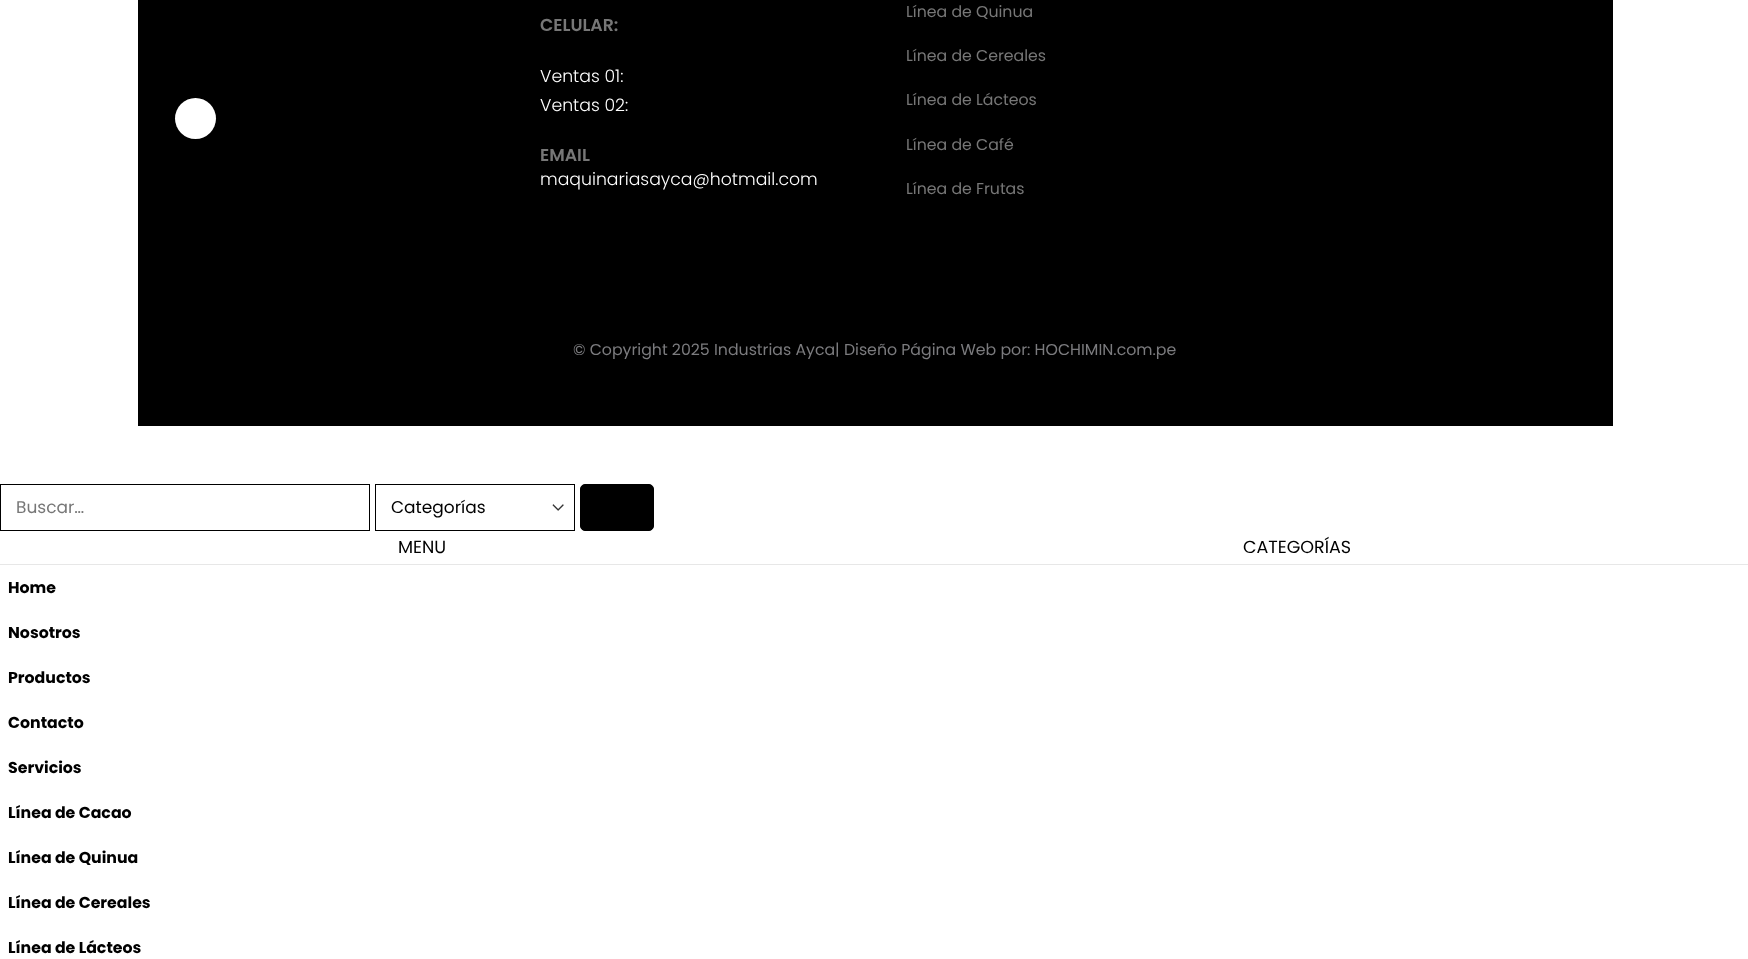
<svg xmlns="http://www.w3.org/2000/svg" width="1748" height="959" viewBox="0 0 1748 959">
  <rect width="100%" height="100%" fill="#ffffff"/>
  <rect x="138" y="0" width="1475" height="426" fill="#000000"/>
  <circle cx="195.5" cy="118.5" r="20.5" fill="#ffffff"/>
  <text x="540" y="31" font-family="Poppins" font-size="17.3" font-weight="600" fill="#777777">CELULAR:</text>
  <text x="540" y="82" font-family="Poppins" font-size="17.3" font-weight="300" fill="#ffffff">Ventas 01:</text>
  <text x="540" y="111" font-family="Poppins" font-size="17.3" font-weight="300" fill="#ffffff">Ventas 02:</text>
  <text x="540" y="161" font-family="Poppins" font-size="17.3" font-weight="600" fill="#777777">EMAIL</text>
  <text x="540" y="185" font-family="Poppins" font-size="17.3" font-weight="300" fill="#ffffff">maquinariasayca@hotmail.com</text>
  <text x="906" y="17" font-family="Poppins" font-size="15.75" fill="#777777">Línea de Quinua</text>
  <text x="906" y="61" font-family="Poppins" font-size="15.75" fill="#777777">Línea de Cereales</text>
  <text x="906" y="105" font-family="Poppins" font-size="15.75" fill="#777777">Línea de Lácteos</text>
  <text x="906" y="150" font-family="Poppins" font-size="15.75" fill="#777777">Línea de Café</text>
  <text x="906" y="194" font-family="Poppins" font-size="15.75" fill="#777777">Línea de Frutas</text>
  <text x="573" y="355" font-family="Poppins" font-size="15.75" fill="#7b7b7e">© Copyright 2025 Industrias Ayca| Diseño Página Web por: HOCHIMIN.com.pe</text>
  <rect x="0.5" y="484.5" width="369" height="46" fill="none" stroke="#000000"/>
  <text x="16" y="513" font-family="Poppins" font-size="17" fill="#777777">Buscar…</text>
  <image x="552" y="504" width="12" height="7" href="img1.png"/>
  <rect x="375.5" y="484.5" width="199" height="46" fill="none" stroke="#000000"/>
  <text x="391" y="513" font-family="Poppins" font-size="17" fill="#000000">Categorías</text>
  <rect x="580.5" y="484.5" width="73" height="46" rx="4.5" fill="#000000" stroke="#000000"/>
  <rect x="0" y="564" width="1748" height="1" fill="#e7e7e7"/>
  <text x="398" y="553" font-family="Poppins" font-size="17.5" fill="#000000">MENU</text>
  <text x="1243" y="553" font-family="Poppins" font-size="17.5" fill="#000000">CATEGORÍAS</text>
  <text x="8" y="593" font-family="Poppins" font-size="15.75" font-weight="bold" fill="#000000">Home</text>
  <text x="8" y="638" font-family="Poppins" font-size="15.75" font-weight="bold" fill="#000000">Nosotros</text>
  <text x="8" y="683" font-family="Poppins" font-size="15.75" font-weight="bold" fill="#000000">Productos</text>
  <text x="8" y="728" font-family="Poppins" font-size="15.75" font-weight="bold" fill="#000000">Contacto</text>
  <text x="8" y="773" font-family="Poppins" font-size="15.75" font-weight="bold" fill="#000000">Servicios</text>
  <text x="8" y="818" font-family="Poppins" font-size="15.75" font-weight="bold" fill="#000000">Línea de Cacao</text>
  <text x="8" y="863" font-family="Poppins" font-size="15.75" font-weight="bold" fill="#000000">Línea de Quinua</text>
  <text x="8" y="908" font-family="Poppins" font-size="15.75" font-weight="bold" fill="#000000">Línea de Cereales</text>
  <text x="8" y="953" font-family="Poppins" font-size="15.75" font-weight="bold" fill="#000000">Línea de Lácteos</text>
</svg>
